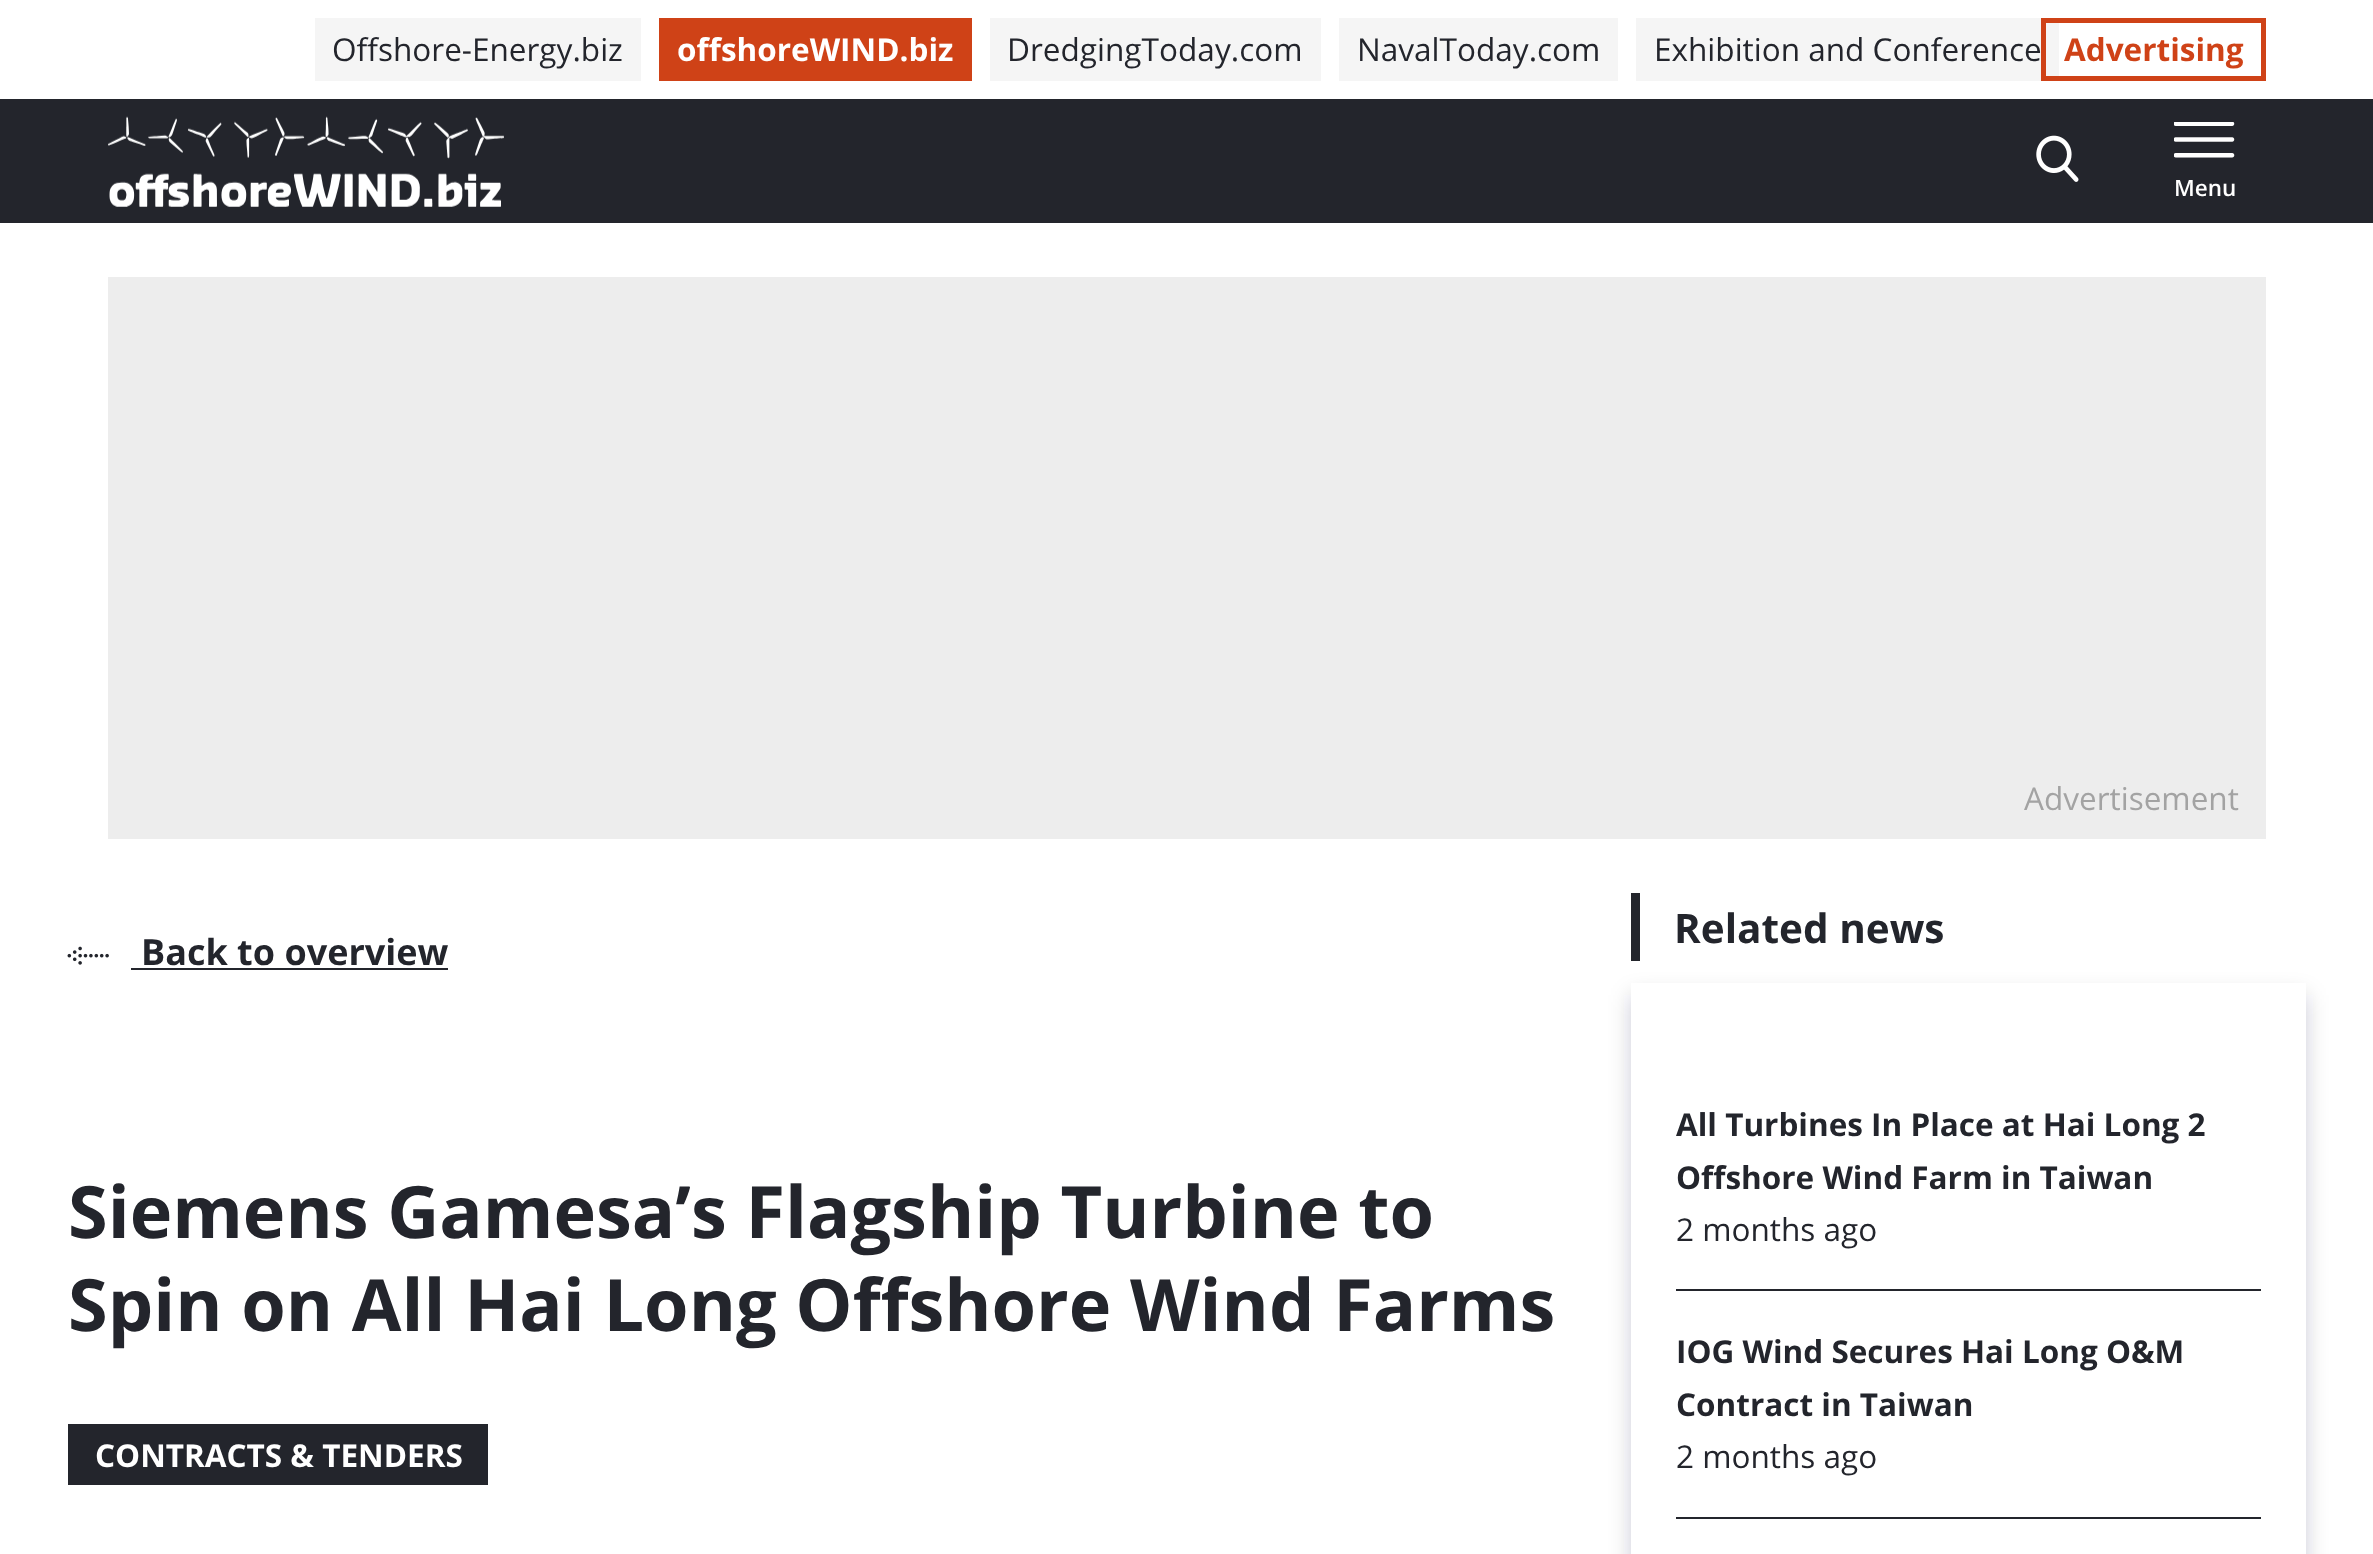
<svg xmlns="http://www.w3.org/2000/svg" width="2373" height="1554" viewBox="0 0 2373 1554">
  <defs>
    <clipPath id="clip1"><path d="M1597 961H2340V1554H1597ZM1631 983H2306V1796H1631Z" clip-rule="evenodd"/></clipPath>
    <filter id="blur1" x="-50%" y="-200%" width="200%" height="500%"><feGaussianBlur stdDeviation="11"/></filter>
  </defs>
  <rect width="100%" height="100%" fill="#ffffff"/>
  <rect x="315" y="18" width="326" height="63" fill="#f5f5f5"/>
  <text x="332" y="61" font-family="Open Sans" font-size="31.5" fill="#23252c">Offshore-Energy.biz</text>
  <rect x="659" y="18" width="313" height="63" fill="#cf4217"/>
  <text x="677" y="61" font-family="Open Sans" font-size="31.5" font-weight="bold" fill="#ffffff">offshoreWIND.biz</text>
  <rect x="990" y="18" width="331" height="63" fill="#f5f5f5"/>
  <text x="1007" y="61" font-family="Open Sans" font-size="31.5" fill="#23252c">DredgingToday.com</text>
  <rect x="1339" y="18" width="279" height="63" fill="#f5f5f5"/>
  <text x="1357" y="61" font-family="Open Sans" font-size="31.5" fill="#23252c">NavalToday.com</text>
  <rect x="1636" y="18" width="423" height="63" fill="#f5f5f5"/>
  <text x="1654" y="61" font-family="Open Sans" font-size="31.5" fill="#23252c">Exhibition and Conference</text>
  <rect x="2043.5" y="20.5" width="220" height="58" fill="none" stroke="#cf4217" stroke-width="5"/>
  <text x="2064" y="61" font-family="Open Sans" font-size="31.5" font-weight="bold" fill="#cf4217">Advertising</text>
  <rect x="0" y="99" width="2373" height="124" fill="#23252c"/>
  <image x="108" y="116" width="396" height="91" href="img1.png"/>
  <image x="2036" y="135" width="43" height="47" href="img2.png"/>
  <image x="2174" y="122" width="61" height="36" href="img3.png"/>
  <text x="2174" y="196" font-family="Open Sans" font-size="22.5" font-weight="600" fill="#ffffff">Menu</text>
  <rect x="108" y="277" width="2158" height="562" fill="#ededed"/>
  <text x="2024" y="810" font-family="Open Sans" font-size="31.5" fill="#a3a3a3">Advertisement</text>
  <image x="67" y="946" width="42" height="19" href="img4.png"/>
  <text x="141" y="965" font-family="Open Sans" font-size="36" font-weight="bold" fill="#23252c">Back to overview</text>
  <rect x="131" y="968" width="317" height="2" fill="#23252c"/>
  <text x="68" y="1238" font-family="Open Sans" font-size="72" font-weight="bold" fill="#23252c">Siemens Gamesa’s Flagship Turbine to</text>
  <text x="68" y="1331" font-family="Open Sans" font-size="72" font-weight="bold" fill="#23252c">Spin on All Hai Long Offshore Wind Farms</text>
  <rect x="68" y="1424" width="420" height="61" fill="#23252c"/>
  <text x="95" y="1467" font-family="Open Sans" font-size="31.5" font-weight="bold" fill="#ffffff">CONTRACTS &amp; TENDERS</text>
  <rect x="1631" y="893" width="9" height="68" fill="#23252c"/>
  <text x="1674" y="943" font-family="Open Sans" font-size="40.5" font-weight="bold" fill="#23252c">Related news</text>
  <g clip-path="url(#clip1)">
    <rect x="1631" y="995" width="675" height="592" fill="#140e32" fill-opacity="0.2" filter="url(#blur1)"/>
  </g>
  <text x="1676" y="1136" font-family="Open Sans" font-size="31.5" font-weight="bold" fill="#23252c">All Turbines In Place at Hai Long 2</text>
  <text x="1676" y="1189" font-family="Open Sans" font-size="31.5" font-weight="bold" fill="#23252c">Offshore Wind Farm in Taiwan</text>
  <text x="1676" y="1241" font-family="Open Sans" font-size="31.5" fill="#23252c">2 months ago</text>
  <rect x="1676" y="1289" width="585" height="2" fill="#23252c"/>
  <text x="1676" y="1363" font-family="Open Sans" font-size="31.5" font-weight="bold" fill="#23252c">IOG Wind Secures Hai Long O&amp;M</text>
  <text x="1676" y="1416" font-family="Open Sans" font-size="31.5" font-weight="bold" fill="#23252c">Contract in Taiwan</text>
  <text x="1676" y="1468" font-family="Open Sans" font-size="31.5" fill="#23252c">2 months ago</text>
  <rect x="1676" y="1517" width="585" height="2" fill="#23252c"/>
</svg>
